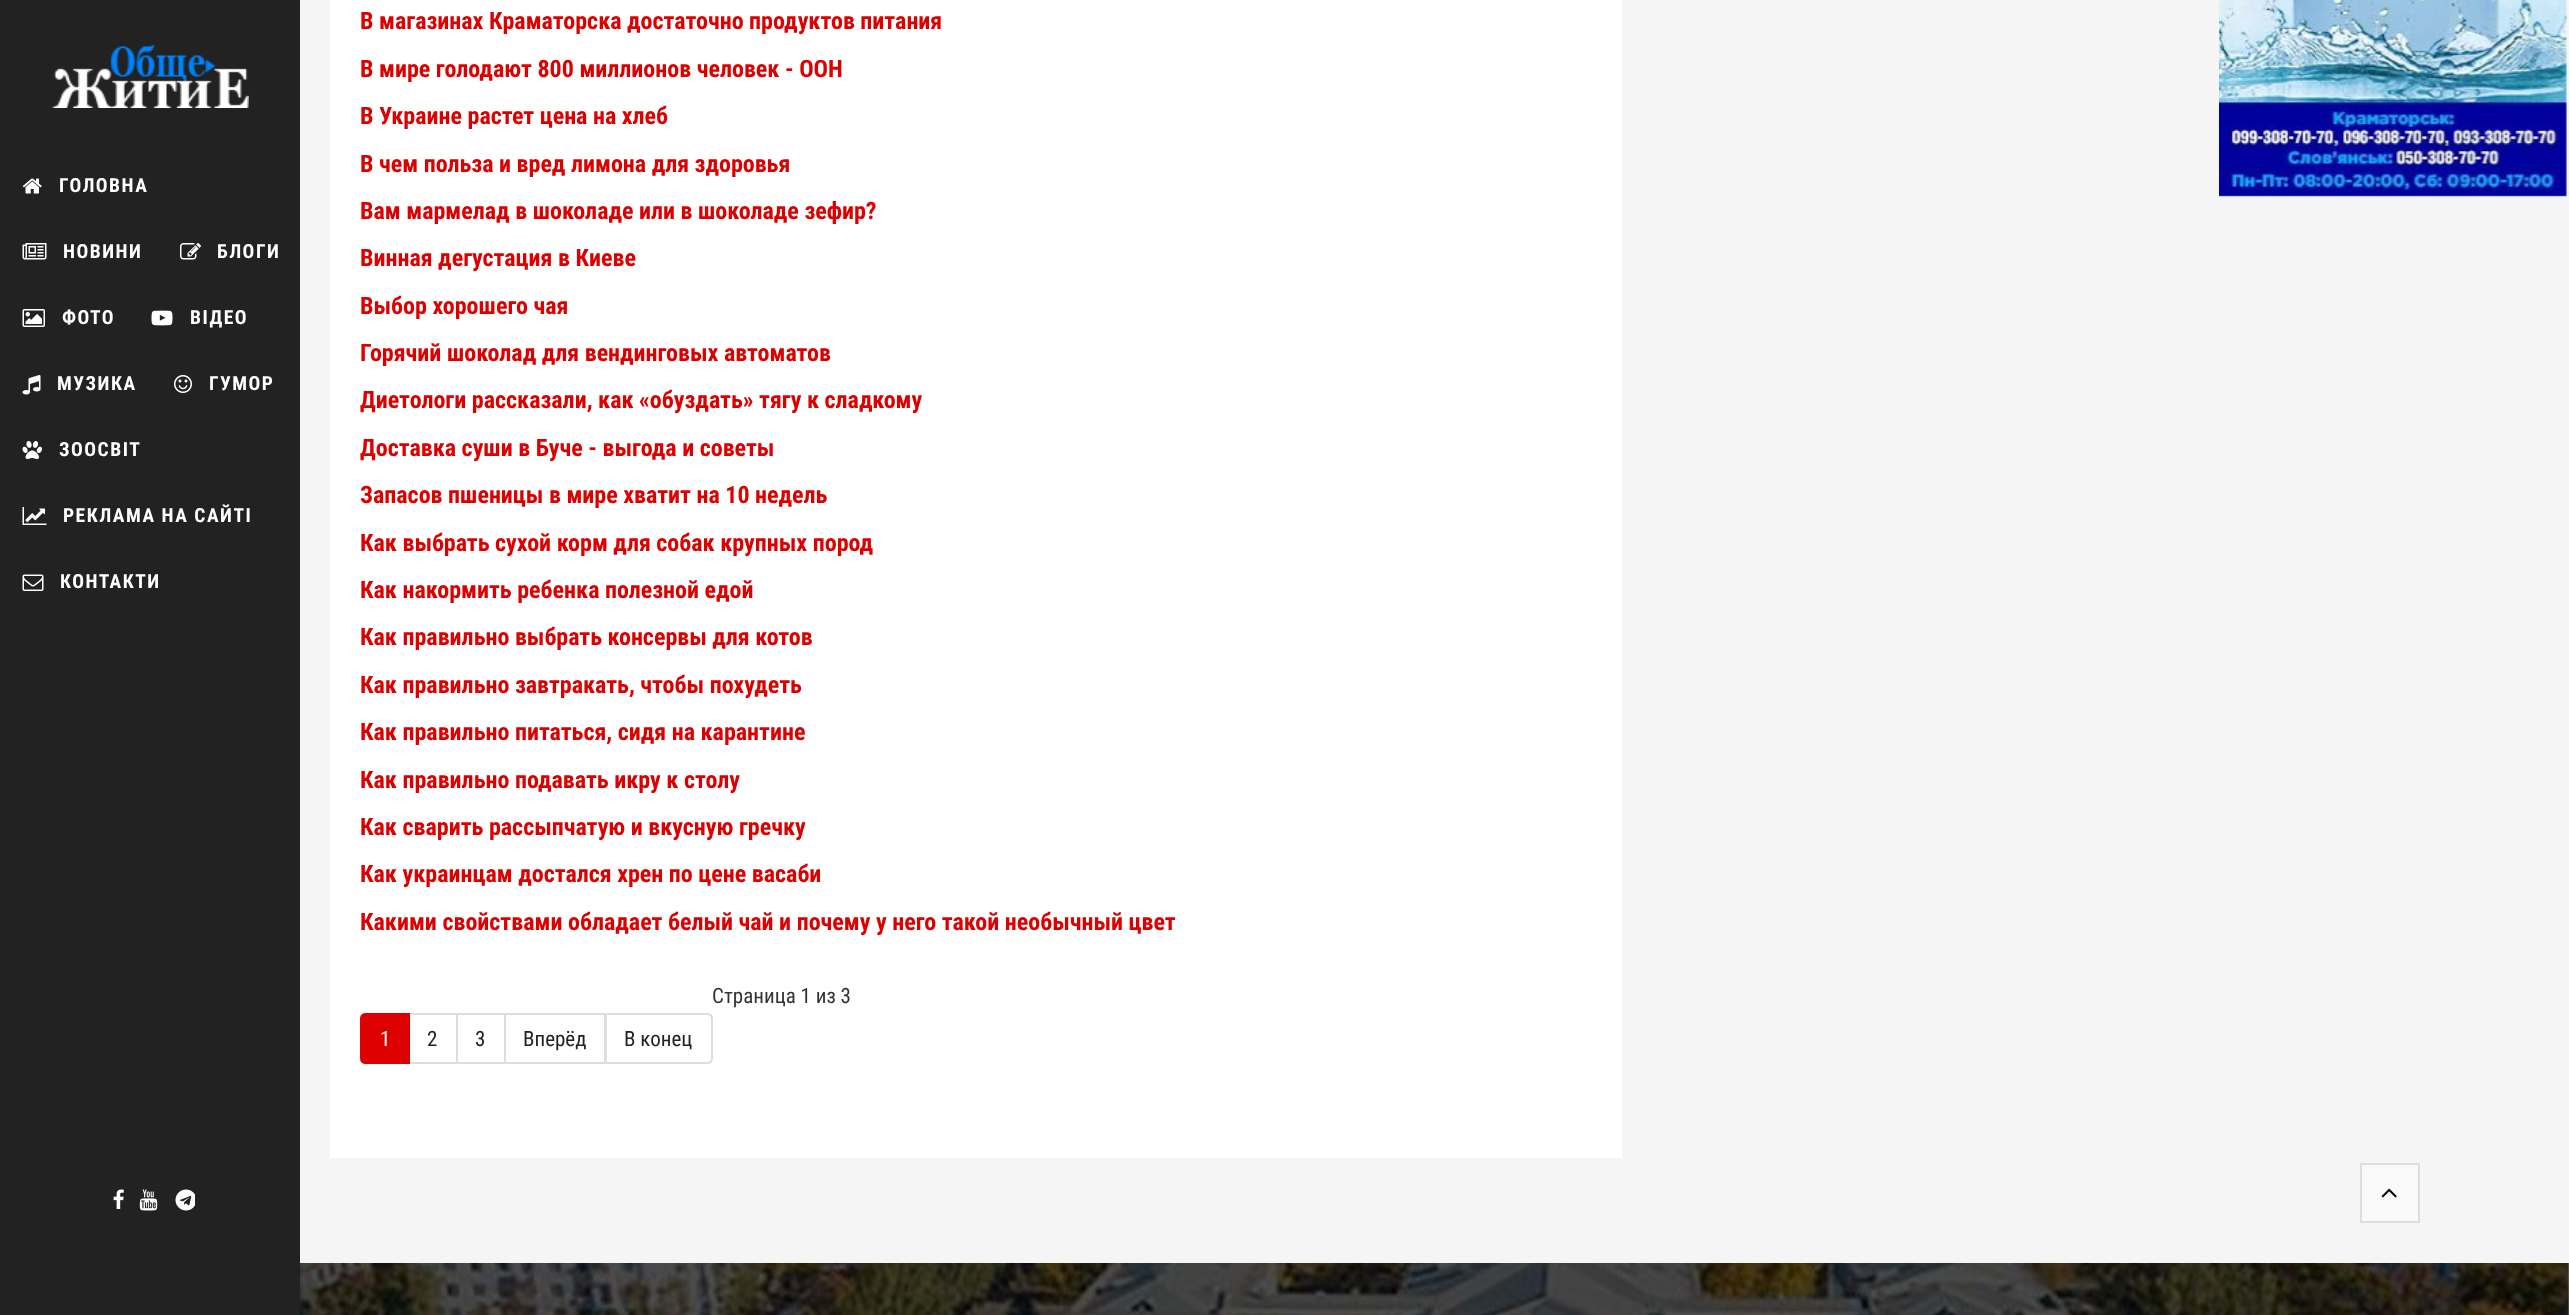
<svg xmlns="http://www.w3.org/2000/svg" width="2569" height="1315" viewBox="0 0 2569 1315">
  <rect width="100%" height="100%" fill="#f5f5f5"/>
  <rect x="0" y="0" width="300" height="1315" fill="#222222"/>
  <image x="52" y="45" width="197" height="63" href="img1.png"/>
  <image x="22" y="178" width="20" height="16" href="img2.png"/>
  <text x="59" y="192" font-family="Roboto Condensed" font-size="19.5" font-weight="bold" letter-spacing="1.5" fill="#ffffff">ГОЛОВНА</text>
  <image x="22" y="243" width="25" height="17" href="img3.png"/>
  <text x="63" y="258" font-family="Roboto Condensed" font-size="19.5" font-weight="bold" letter-spacing="1.5" fill="#ffffff">НОВИНИ</text>
  <image x="180" y="243" width="21" height="17" href="img4.png"/>
  <text x="217" y="258" font-family="Roboto Condensed" font-size="19.5" font-weight="bold" letter-spacing="1.5" fill="#ffffff">БЛОГИ</text>
  <image x="22" y="309" width="23" height="18" href="img5.png"/>
  <text x="62" y="324" font-family="Roboto Condensed" font-size="19.5" font-weight="bold" letter-spacing="1.5" fill="#ffffff">ФОТО</text>
  <image x="151" y="310" width="22" height="16" href="img6.png"/>
  <text x="190" y="324" font-family="Roboto Condensed" font-size="19.5" font-weight="bold" letter-spacing="1.5" fill="#ffffff">ВІДЕО</text>
  <image x="22" y="375" width="19" height="20" href="img7.png"/>
  <text x="57" y="390" font-family="Roboto Condensed" font-size="19.5" font-weight="bold" letter-spacing="1.5" fill="#ffffff">МУЗИКА</text>
  <image x="174" y="375" width="18" height="18" href="img8.png"/>
  <text x="209" y="390" font-family="Roboto Condensed" font-size="19.5" font-weight="bold" letter-spacing="1.5" fill="#ffffff">ГУМОР</text>
  <image x="22" y="441" width="20" height="18" href="img9.png"/>
  <text x="59" y="456" font-family="Roboto Condensed" font-size="19.5" font-weight="bold" letter-spacing="1.5" fill="#ffffff">ЗООСВІТ</text>
  <image x="22" y="507" width="25" height="18" href="img10.png"/>
  <text x="63" y="522" font-family="Roboto Condensed" font-size="19.5" font-weight="bold" letter-spacing="1.5" fill="#ffffff">РЕКЛАМА НА САЙТІ</text>
  <image x="22" y="574" width="22" height="17" href="img11.png"/>
  <text x="60" y="588" font-family="Roboto Condensed" font-size="19.5" font-weight="bold" letter-spacing="1.5" fill="#ffffff">КОНТАКТИ</text>
  <image x="113" y="1189" width="11" height="20" href="img12.png"/>
  <image x="139" y="1189" width="19" height="22" href="img13.png"/>
  <image x="175" y="1189" width="20" height="22" href="img14.png"/>
  <rect x="330" y="0" width="1292" height="1158" fill="#ffffff"/>
  <text x="360" y="29" font-family="Roboto Condensed" font-size="24" font-weight="bold" fill="#dd0000">В магазинах Краматорска достаточно продуктов питания</text>
  <text x="360" y="77" font-family="Roboto Condensed" font-size="24" font-weight="bold" fill="#dd0000">В мире голодают 800 миллионов человек - ООН</text>
  <text x="360" y="124" font-family="Roboto Condensed" font-size="24" font-weight="bold" fill="#dd0000">В Украине растет цена на хлеб</text>
  <text x="360" y="172" font-family="Roboto Condensed" font-size="24" font-weight="bold" fill="#dd0000">В чем польза и вред лимона для здоровья</text>
  <text x="360" y="219" font-family="Roboto Condensed" font-size="24" font-weight="bold" fill="#dd0000">Вам мармелад в шоколаде или в шоколаде зефир?</text>
  <text x="360" y="266" font-family="Roboto Condensed" font-size="24" font-weight="bold" fill="#dd0000">Винная дегустация в Киеве</text>
  <text x="360" y="314" font-family="Roboto Condensed" font-size="24" font-weight="bold" fill="#dd0000">Выбор хорошего чая</text>
  <text x="360" y="361" font-family="Roboto Condensed" font-size="24" font-weight="bold" fill="#dd0000">Горячий шоколад для вендинговых автоматов</text>
  <text x="360" y="408" font-family="Roboto Condensed" font-size="24" font-weight="bold" fill="#dd0000">Диетологи рассказали, как «обуздать» тягу к сладкому</text>
  <text x="360" y="456" font-family="Roboto Condensed" font-size="24" font-weight="bold" fill="#dd0000">Доставка суши в Буче - выгода и советы</text>
  <text x="360" y="503" font-family="Roboto Condensed" font-size="24" font-weight="bold" fill="#dd0000">Запасов пшеницы в мире хватит на 10 недель</text>
  <text x="360" y="551" font-family="Roboto Condensed" font-size="24" font-weight="bold" fill="#dd0000">Как выбрать сухой корм для собак крупных пород</text>
  <text x="360" y="598" font-family="Roboto Condensed" font-size="24" font-weight="bold" fill="#dd0000">Как накормить ребенка полезной едой</text>
  <text x="360" y="645" font-family="Roboto Condensed" font-size="24" font-weight="bold" fill="#dd0000">Как правильно выбрать консервы для котов</text>
  <text x="360" y="693" font-family="Roboto Condensed" font-size="24" font-weight="bold" fill="#dd0000">Как правильно завтракать, чтобы похудеть</text>
  <text x="360" y="740" font-family="Roboto Condensed" font-size="24" font-weight="bold" fill="#dd0000">Как правильно питаться, сидя на карантине</text>
  <text x="360" y="788" font-family="Roboto Condensed" font-size="24" font-weight="bold" fill="#dd0000">Как правильно подавать икру к столу</text>
  <text x="360" y="835" font-family="Roboto Condensed" font-size="24" font-weight="bold" fill="#dd0000">Как сварить рассыпчатую и вкусную гречку</text>
  <text x="360" y="882" font-family="Roboto Condensed" font-size="24" font-weight="bold" fill="#dd0000">Как украинцам достался хрен по цене васаби</text>
  <text x="360" y="930" font-family="Roboto Condensed" font-size="24" font-weight="bold" fill="#dd0000">Какими свойствами обладает белый чай и почему у него такой необычный цвет</text>
  <text x="712" y="1003" font-family="Roboto Condensed" font-size="21" fill="#333333">Страница 1 из 3</text>
  <rect x="409" y="1014" width="48" height="49" fill="none" stroke="#dddddd" stroke-width="2"/>
  <path d="M366 1014H409V1063H366C363 1063 361 1061 361 1058V1019C361 1016 363 1014 366 1014Z" fill="#dd0000" stroke="#dd0000" stroke-width="2"/>
  <text x="380" y="1046" font-family="Roboto Condensed" font-size="21" fill="#ffffff">1</text>
  <text x="427" y="1046" font-family="Roboto Condensed" font-size="21" fill="#222222">2</text>
  <rect x="457" y="1014" width="48" height="49" fill="none" stroke="#dddddd" stroke-width="2"/>
  <text x="475" y="1046" font-family="Roboto Condensed" font-size="21" fill="#222222">3</text>
  <rect x="505" y="1014" width="100" height="49" fill="none" stroke="#dddddd" stroke-width="2"/>
  <text x="523" y="1046" font-family="Roboto Condensed" font-size="21" fill="#222222">Вперёд</text>
  <path d="M606 1014H707C710 1014 712 1016 712 1019V1058C712 1061 710 1063 707 1063H606Z" fill="#ffffff" stroke="#dddddd" stroke-width="2"/>
  <text x="624" y="1046" font-family="Roboto Condensed" font-size="21" fill="#222222">В конец</text>
  <image x="2219" y="0" width="348" height="197" href="img15.png"/>
  <image x="300" y="1263" width="2269" height="52" href="img16.png"/>
  <rect x="2361" y="1164" width="58" height="58" fill="#f9f9f9" stroke="#dddddd" stroke-width="2"/>
  <image x="2381" y="1188" width="16" height="10" href="img17.png"/>
</svg>
